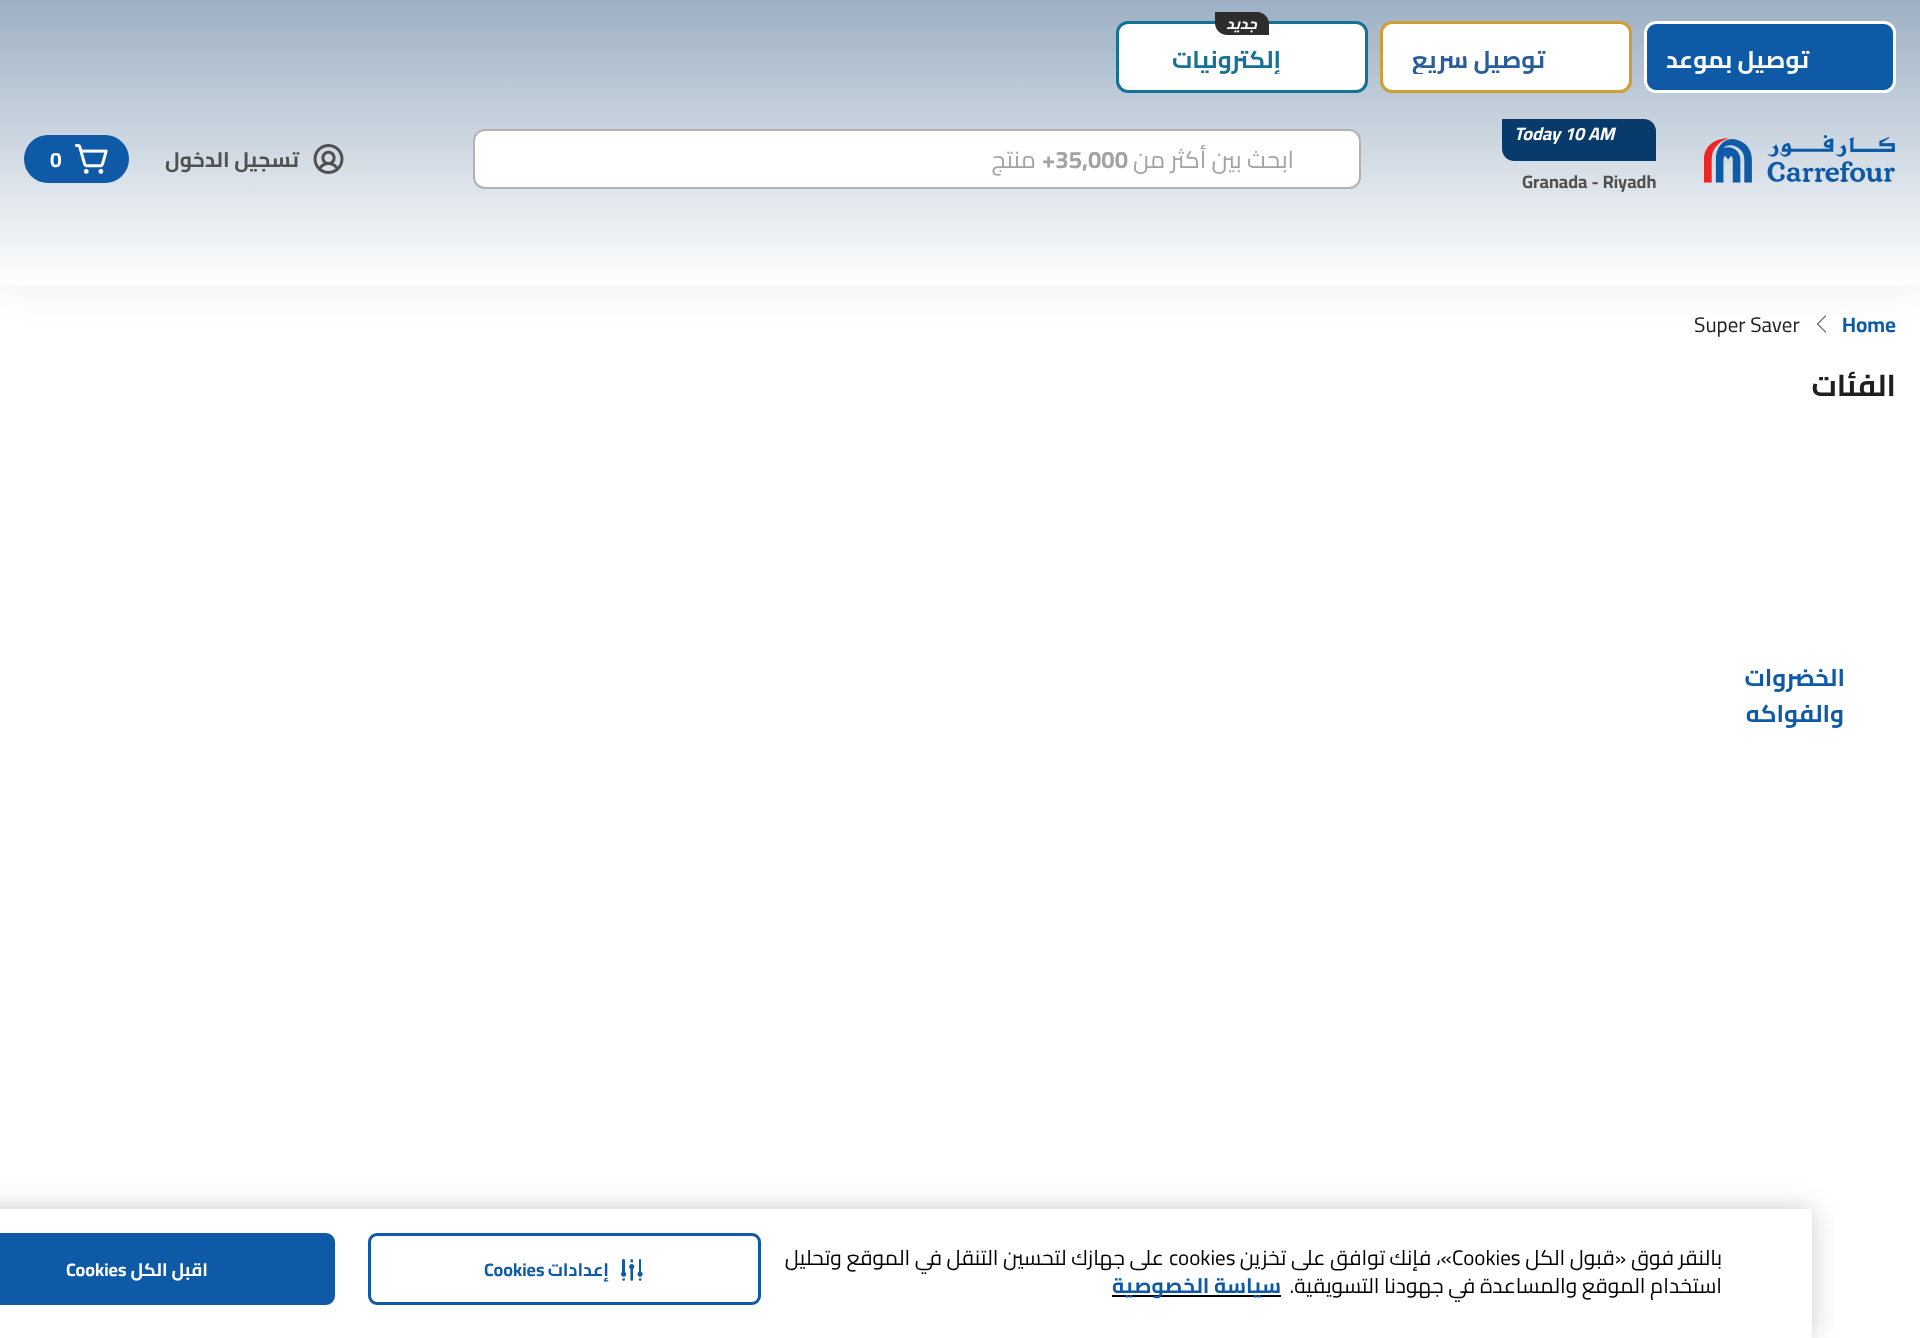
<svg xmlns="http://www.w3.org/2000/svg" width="1920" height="1338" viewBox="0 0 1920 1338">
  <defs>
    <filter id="blur1" x="-50%" y="-200%" width="200%" height="500%"><feGaussianBlur stdDeviation="18"/></filter>
    <linearGradient id="g1" gradientUnits="userSpaceOnUse" x1="960" y1="0" x2="960" y2="285"><stop offset="0" stop-color="#9db0c4"/><stop offset="1" stop-color="#ffffff"/></linearGradient>
    <clipPath id="clip1"><rect x="1412" y="44" width="139" height="30"/></clipPath>
    <clipPath id="clip2"><rect x="1172" y="44" width="115" height="30"/></clipPath>
    <clipPath id="clip3"><path d="M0 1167H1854V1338H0ZM-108 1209H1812V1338H-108Z" clip-rule="evenodd"/></clipPath>
    <filter id="blur2" x="-50%" y="-200%" width="200%" height="500%"><feGaussianBlur stdDeviation="13.5"/></filter>
  </defs>
  <rect width="100%" height="100%" fill="#ffffff"/>
  <path d="M1825.5 332L1817.5 324L1825.5 316" fill="none" stroke="#747474" stroke-width="1.3" stroke-linecap="round" stroke-linejoin="round"/>
  <rect x="0" y="6" width="1920" height="285" fill="#000000" fill-opacity="0.06" filter="url(#blur1)"/>
  <rect x="0" y="0" width="1920" height="285" fill="url(#g1)"/>
  <rect x="1645.5" y="22.5" width="249" height="69" rx="10.5" fill="#0e5aa7" stroke="#ffffff" stroke-width="3"/>
  <text x="1809" y="68" font-family="Cairo" font-size="24" font-weight="bold" direction="rtl" fill="#ffffff">توصيل بموعد</text>
  <rect x="1381.5" y="22.5" width="249" height="69" rx="10.5" fill="#ffffff" stroke="#cf9e36" stroke-width="3"/>
  <g clip-path="url(#clip1)">
    <text x="1545" y="68" font-family="Cairo" font-size="24" font-weight="bold" direction="rtl" fill="#285e9c">توصيل سريع</text>
  </g>
  <rect x="1117.5" y="22.5" width="249" height="69" rx="10.5" fill="#ffffff" stroke="#157296" stroke-width="3"/>
  <path d="M1215 12H1257C1263.5 12 1269 17.5 1269 24V35H1227C1220.5 35 1215 29.5 1215 23Z" fill="#2d2d2d"/>
  <text x="1257" y="29" font-family="Cairo" font-size="15" font-weight="bold" font-style="italic" direction="rtl" fill="#ffffff">جديد</text>
  <g clip-path="url(#clip2)">
    <text x="1281" y="68" font-family="Cairo" font-size="24" font-weight="bold" direction="rtl" fill="#157296">إلكترونيات</text>
  </g>
  <image x="1704" y="135" width="191" height="48" href="img1.png"/>
  <path d="M1502 119H1644C1650.5 119 1656 124.5 1656 131V161H1514C1507.5 161 1502 155.5 1502 149Z" fill="#093a6c"/>
  <text x="1514" y="140" font-family="Cairo" font-size="18" font-weight="bold" font-style="italic" fill="#ffffff">Today 10 AM</text>
  <text x="1522" y="188" font-family="Cairo" font-size="18" font-weight="bold" fill="#505050">Granada - Riyadh</text>
  <rect x="474" y="130" width="886" height="58" rx="11" fill="#ffffff" stroke="#b2b2b2" stroke-width="2"/>
  <text x="1294" y="168" font-family="Cairo" font-size="24" direction="rtl" fill="#a3a3a3">ابحث بين أكثر من</text>
  <text x="1042" y="168" font-family="Cairo" font-size="24" font-weight="bold" fill="#a3a3a3">+35,000</text>
  <text x="1036" y="168" font-family="Cairo" font-size="24" direction="rtl" fill="#a3a3a3">منتج</text>
  <image x="313" y="144" width="31" height="30" href="img2.png"/>
  <text x="299" y="167" font-family="Cairo" font-size="21" font-weight="bold" direction="rtl" fill="#505050">تسجيل الدخول</text>
  <rect x="24" y="135" width="105" height="48" rx="24" fill="#0e5aa7"/>
  <image x="75" y="144" width="33" height="30" href="img3.png"/>
  <text x="50" y="167" font-family="Cairo" font-size="21" font-weight="bold" fill="#ffffff">0</text>
  <text x="1842" y="332" font-family="Cairo" font-size="21" font-weight="bold" fill="#0e5aa7">Home</text>
  <text x="1694" y="332" font-family="Cairo" font-size="21" fill="#1f1f1f">Super Saver</text>
  <text x="1896" y="396" font-family="Cairo" font-size="30" font-weight="bold" direction="rtl" fill="#1f1f1f">الفئات</text>
  <text x="1845" y="686" font-family="Cairo" font-size="24" font-weight="bold" direction="rtl" fill="#0e5aa7">الخضروات</text>
  <text x="1844" y="722" font-family="Cairo" font-size="24" font-weight="bold" direction="rtl" fill="#0e5aa7">والفواكه</text>
  <g clip-path="url(#clip3)">
    <rect x="-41" y="1209" width="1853" height="129" fill="#000000" fill-opacity="0.2" filter="url(#blur2)"/>
  </g>
  <text x="1722" y="1265" font-family="Cairo" font-size="21" direction="rtl" fill="#000000">بالنقر فوق «قبول الكل</text>
  <text x="1452" y="1265" font-family="Cairo" font-size="21" fill="#000000">Cookies</text>
  <text x="1452" y="1265" font-family="Cairo" font-size="21" direction="rtl" fill="#000000">»، فإنك توافق على تخزين</text>
  <text x="1169" y="1265" font-family="Cairo" font-size="21" fill="#000000">cookies</text>
  <text x="1164" y="1265" font-family="Cairo" font-size="21" direction="rtl" fill="#000000">على جهازك لتحسين التنقل في الموقع وتحليل</text>
  <text x="1722" y="1293" font-family="Cairo" font-size="21" direction="rtl" fill="#000000">استخدام الموقع والمساعدة في جهودنا التسويقية.</text>
  <rect x="1112" y="1295" width="169" height="2" fill="#000000"/>
  <text x="1281" y="1293" font-family="Cairo" font-size="21" font-weight="bold" direction="rtl" fill="#0e5aa7">سياسة الخصوصية</text>
  <rect x="369.5" y="1234.5" width="390" height="69" rx="7.5" fill="none" stroke="#0e5aa7" stroke-width="3"/>
  <image x="621" y="1259" width="22" height="22" href="img4.png"/>
  <text x="609" y="1276" font-family="Cairo" font-size="18" font-weight="bold" direction="rtl" fill="#0e5aa7">إعدادات</text>
  <text x="484" y="1276" font-family="Cairo" font-size="18" font-weight="bold" fill="#0e5aa7">Cookies</text>
  <rect x="-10.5" y="1234.5" width="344" height="69" rx="7.5" fill="#0e5aa7" stroke="#0e5aa7" stroke-width="3"/>
  <text x="208" y="1276" font-family="Cairo" font-size="18" font-weight="bold" direction="rtl" fill="#ffffff">اقبل الكل</text>
  <text x="66" y="1276" font-family="Cairo" font-size="18" font-weight="bold" fill="#ffffff">Cookies</text>
</svg>
